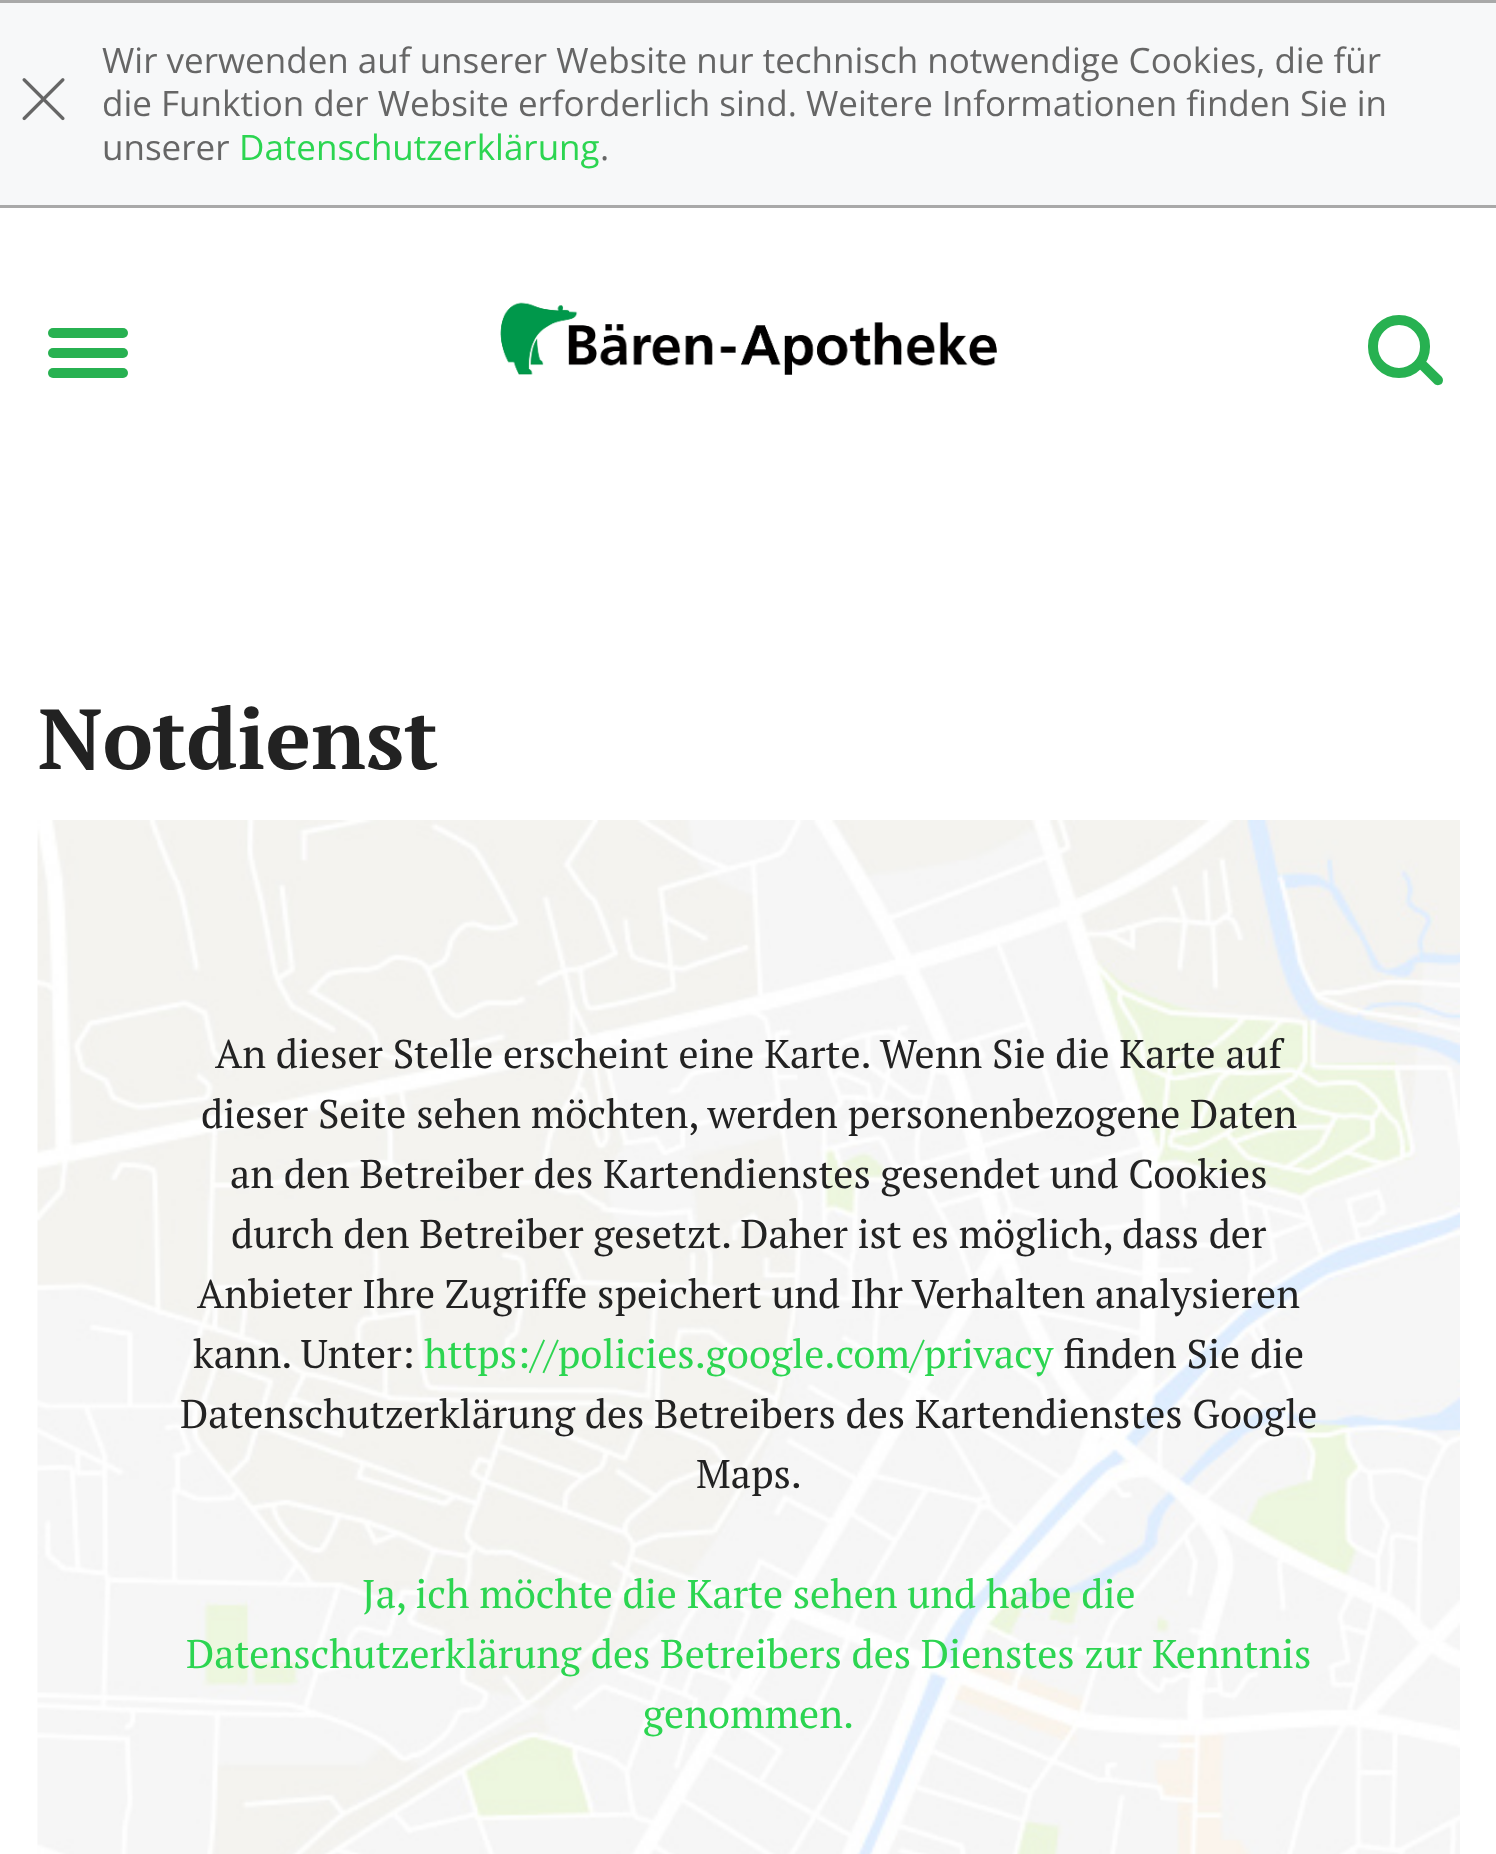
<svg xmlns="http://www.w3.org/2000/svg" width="1496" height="1854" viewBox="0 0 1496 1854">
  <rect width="100%" height="100%" fill="#ffffff"/>
  <rect x="0" y="3" width="1496" height="202" fill="#f7f8f9"/>
  <rect x="0" y="0" width="1496" height="3" fill="#a9a9a9"/>
  <rect x="0" y="205" width="1496" height="3" fill="#a9a9a9"/>
  <image x="22" y="78" width="43" height="43" href="img1.png"/>
  <text x="102" y="73" font-family="Open Sans" font-size="35" fill="#666666">Wir verwenden auf unserer Website nur technisch notwendige Cookies, die für</text>
  <text x="102" y="116" font-family="Open Sans" font-size="35" fill="#666666">die Funktion der Website erforderlich sind. Weitere Informationen finden Sie in</text>
  <text x="102" y="160" font-family="Open Sans" font-size="35" fill="#666666">unserer</text>
  <text x="239" y="160" font-family="Open Sans" font-size="35" fill="#2cd551">Datenschutzerklärung</text>
  <text x="600" y="160" font-family="Open Sans" font-size="35" fill="#666666">.</text>
  <rect x="48" y="328" width="80" height="10" rx="5" fill="#27b151"/>
  <rect x="48" y="348" width="80" height="10" rx="5" fill="#27b151"/>
  <rect x="48" y="368" width="80" height="10" rx="5" fill="#27b151"/>
  <image x="500" y="302" width="497" height="73" href="img2.png"/>
  <rect x="1373" y="320" width="52" height="53" rx="26" fill="none" stroke="#27b151" stroke-width="10"/>
  <path d="M1423.5 359L1441.5 376.5C1443.5 378.5 1443.5 382 1441.5 384C1439.5 385.5 1436 385.5 1434.5 384L1416.5 366C1414.5 364 1414.5 361 1416.5 359C1418.5 357 1421.5 357 1423.5 359Z" fill="#27b151"/>
  <text x="38" y="769" font-family="PT Serif" font-size="85" font-weight="bold" fill="#222222">Notdienst</text>
  <image x="37" y="820" width="1423" height="1034" href="img3.png"/>
  <text x="215" y="1068" font-family="PT Serif" font-size="40" fill="#222222">An dieser Stelle erscheint eine Karte. Wenn Sie die Karte auf</text>
  <text x="201" y="1128" font-family="PT Serif" font-size="40" fill="#222222">dieser Seite sehen möchten, werden personenbezogene Daten</text>
  <text x="230" y="1188" font-family="PT Serif" font-size="40" fill="#222222">an den Betreiber des Kartendienstes gesendet und Cookies</text>
  <text x="231" y="1248" font-family="PT Serif" font-size="40" fill="#222222">durch den Betreiber gesetzt. Daher ist es möglich, dass der</text>
  <text x="197" y="1308" font-family="PT Serif" font-size="40" fill="#222222">Anbieter Ihre Zugriffe speichert und Ihr Verhalten analysieren</text>
  <text x="193" y="1368" font-family="PT Serif" font-size="40" fill="#222222">kann. Unter:</text>
  <text x="424" y="1368" font-family="PT Serif" font-size="40" fill="#2cd551">https://policies.google.com/privacy</text>
  <text x="1063" y="1368" font-family="PT Serif" font-size="40" fill="#222222">finden Sie die</text>
  <text x="180" y="1428" font-family="PT Serif" font-size="40" fill="#222222">Datenschutzerklärung des Betreibers des Kartendienstes Google</text>
  <text x="696" y="1488" font-family="PT Serif" font-size="40" fill="#222222">Maps.</text>
  <text x="362" y="1608" font-family="PT Serif" font-size="40" fill="#2cd551">Ja, ich möchte die Karte sehen und habe die</text>
  <text x="186" y="1668" font-family="PT Serif" font-size="40" fill="#2cd551">Datenschutzerklärung des Betreibers des Dienstes zur Kenntnis</text>
  <text x="643" y="1728" font-family="PT Serif" font-size="40" fill="#2cd551">genommen.</text>
</svg>
